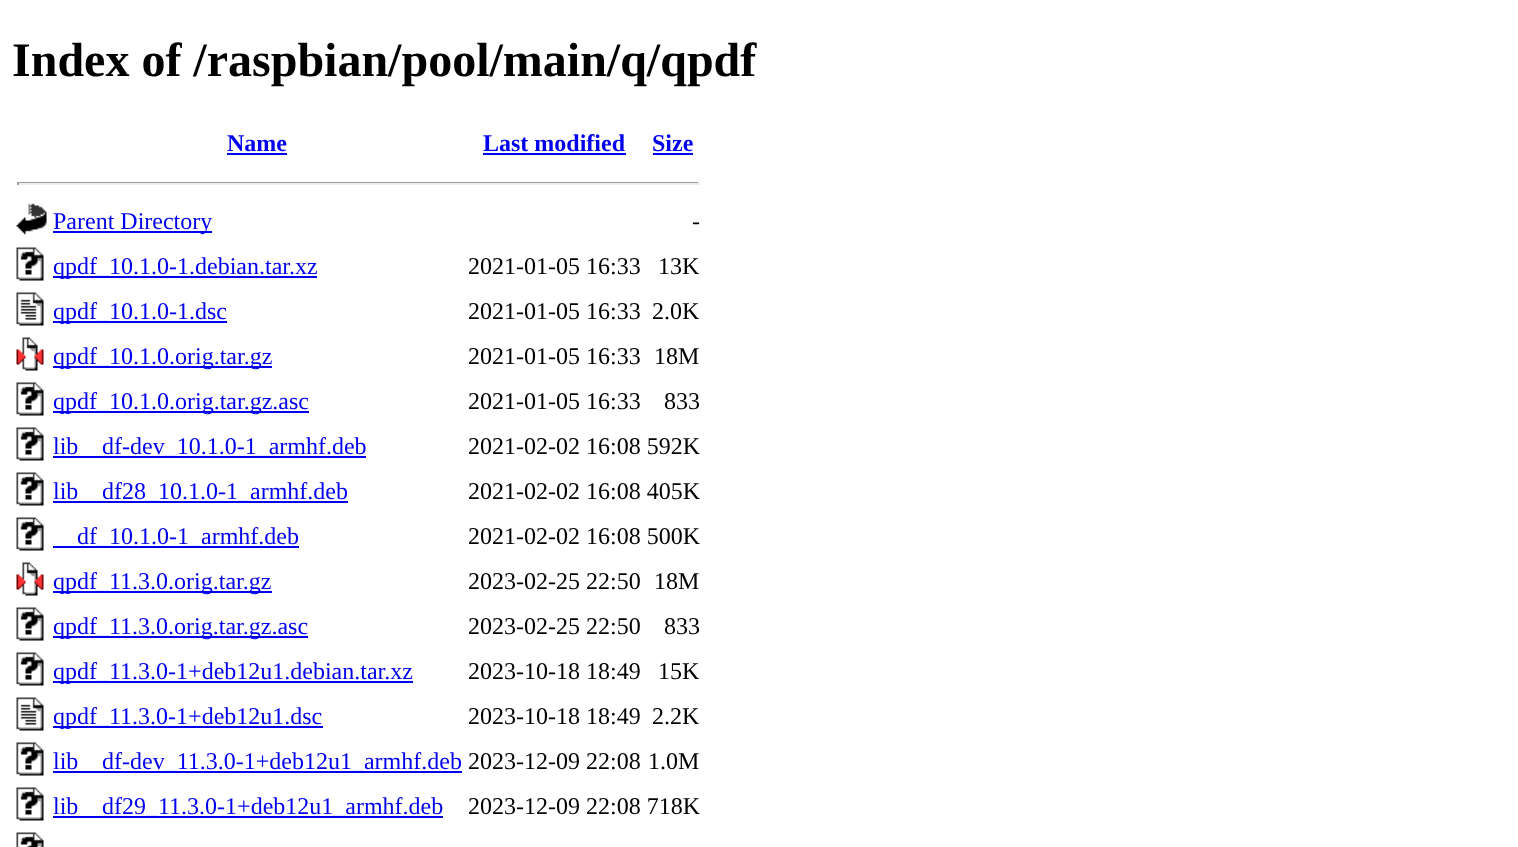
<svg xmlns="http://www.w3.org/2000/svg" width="1518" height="847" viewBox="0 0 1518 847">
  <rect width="100%" height="100%" fill="#ffffff"/>
  <text x="12" y="76" font-family="Liberation Serif" font-size="48" font-weight="bold" fill="#000000">Index of /raspbian/pool/main/q/qpdf</text>
  <text x="227" y="151" font-family="Liberation Serif" font-size="24" font-weight="bold" fill="#0000ee">Name</text>
  <rect x="227" y="153" width="60" height="2" fill="#0000ee"/>
  <text x="483" y="151" font-family="Liberation Serif" font-size="24" font-weight="bold" fill="#0000ee">Last modified</text>
  <rect x="483" y="153" width="143" height="2" fill="#0000ee"/>
  <text x="652" y="151" font-family="Liberation Serif" font-size="24" font-weight="bold" fill="#0000ee">Size</text>
  <rect x="653" y="153" width="40" height="2" fill="#0000ee"/>
  <rect x="17" y="182" width="682" height="1" fill="#9f9f9f"/>
  <rect x="698" y="182" width="2" height="3" fill="#eeeeee"/>
  <rect x="17" y="183" width="682" height="2" fill="#eeeeee"/>
  <rect x="17" y="182" width="2" height="3" fill="#9f9f9f"/>
  <image x="16" y="203" width="31" height="32" href="img1.png"/>
  <rect x="53" y="231" width="159" height="2" fill="#0000ee"/>
  <text x="53" y="229" font-family="Liberation Serif" font-size="24" fill="#0000ee">Parent Directory</text>
  <text x="692" y="229" font-family="Liberation Serif" font-size="24" fill="#000000">-</text>
  <image x="16" y="247" width="28" height="34" href="img2.png"/>
  <rect x="53" y="276" width="264" height="2" fill="#0000ee"/>
  <text x="53" y="274" font-family="Liberation Serif" font-size="24" fill="#0000ee">qpdf_10.1.0-1.debian.tar.xz</text>
  <text x="468" y="274" font-family="Liberation Serif" font-size="24" fill="#000000">2021-01-05 16:33</text>
  <text x="658" y="274" font-family="Liberation Serif" font-size="24" fill="#000000">13K</text>
  <image x="16" y="292" width="28" height="34" href="img3.png"/>
  <rect x="53" y="321" width="174" height="2" fill="#0000ee"/>
  <text x="53" y="319" font-family="Liberation Serif" font-size="24" fill="#0000ee">qpdf_10.1.0-1.dsc</text>
  <text x="468" y="319" font-family="Liberation Serif" font-size="24" fill="#000000">2021-01-05 16:33</text>
  <text x="652" y="319" font-family="Liberation Serif" font-size="24" fill="#000000">2.0K</text>
  <image x="16" y="337" width="28" height="34" href="img4.png"/>
  <rect x="53" y="366" width="219" height="2" fill="#0000ee"/>
  <text x="53" y="364" font-family="Liberation Serif" font-size="24" fill="#0000ee">qpdf_10.1.0.orig.tar.gz</text>
  <text x="468" y="364" font-family="Liberation Serif" font-size="24" fill="#000000">2021-01-05 16:33</text>
  <text x="654" y="364" font-family="Liberation Serif" font-size="24" fill="#000000">18M</text>
  <image x="16" y="382" width="28" height="34" href="img2.png"/>
  <rect x="53" y="411" width="256" height="2" fill="#0000ee"/>
  <text x="53" y="409" font-family="Liberation Serif" font-size="24" fill="#0000ee">qpdf_10.1.0.orig.tar.gz.asc</text>
  <text x="468" y="409" font-family="Liberation Serif" font-size="24" fill="#000000">2021-01-05 16:33</text>
  <text x="664" y="409" font-family="Liberation Serif" font-size="24" fill="#000000">833</text>
  <image x="16" y="427" width="28" height="34" href="img2.png"/>
  <text x="53" y="454" font-family="Liberation Serif" font-size="24" fill="#0000ee">lib</text>
  <rect x="53" y="456" width="313" height="2" fill="#0000ee"/>
  <text x="102" y="454" font-family="Liberation Serif" font-size="24" fill="#0000ee">df-dev_10.1.0-1_armhf.deb</text>
  <text x="468" y="454" font-family="Liberation Serif" font-size="24" fill="#000000">2021-02-02 16:08 592K</text>
  <image x="16" y="472" width="28" height="34" href="img2.png"/>
  <text x="53" y="499" font-family="Liberation Serif" font-size="24" fill="#0000ee">lib</text>
  <rect x="53" y="501" width="295" height="2" fill="#0000ee"/>
  <text x="102" y="499" font-family="Liberation Serif" font-size="24" fill="#0000ee">df28_10.1.0-1_armhf.deb</text>
  <text x="468" y="499" font-family="Liberation Serif" font-size="24" fill="#000000">2021-02-02 16:08 405K</text>
  <image x="16" y="517" width="28" height="34" href="img2.png"/>
  <rect x="53" y="546" width="246" height="2" fill="#0000ee"/>
  <text x="77" y="544" font-family="Liberation Serif" font-size="24" fill="#0000ee">df_10.1.0-1_armhf.deb</text>
  <text x="468" y="544" font-family="Liberation Serif" font-size="24" fill="#000000">2021-02-02 16:08 500K</text>
  <image x="16" y="562" width="28" height="34" href="img4.png"/>
  <rect x="53" y="591" width="219" height="2" fill="#0000ee"/>
  <text x="53" y="589" font-family="Liberation Serif" font-size="24" fill="#0000ee">qpdf_11.3.0.orig.tar.gz</text>
  <text x="468" y="589" font-family="Liberation Serif" font-size="24" fill="#000000">2023-02-25 22:50</text>
  <text x="654" y="589" font-family="Liberation Serif" font-size="24" fill="#000000">18M</text>
  <image x="16" y="607" width="28" height="34" href="img2.png"/>
  <rect x="53" y="636" width="255" height="2" fill="#0000ee"/>
  <text x="53" y="634" font-family="Liberation Serif" font-size="24" fill="#0000ee">qpdf_11.3.0.orig.tar.gz.asc</text>
  <text x="468" y="634" font-family="Liberation Serif" font-size="24" fill="#000000">2023-02-25 22:50</text>
  <text x="664" y="634" font-family="Liberation Serif" font-size="24" fill="#000000">833</text>
  <image x="16" y="652" width="28" height="34" href="img2.png"/>
  <rect x="53" y="681" width="360" height="2" fill="#0000ee"/>
  <text x="53" y="679" font-family="Liberation Serif" font-size="24" fill="#0000ee">qpdf_11.3.0-1+deb12u1.debian.tar.xz</text>
  <text x="468" y="679" font-family="Liberation Serif" font-size="24" fill="#000000">2023-10-18 18:49</text>
  <text x="658" y="679" font-family="Liberation Serif" font-size="24" fill="#000000">15K</text>
  <image x="16" y="697" width="28" height="34" href="img3.png"/>
  <rect x="53" y="726" width="270" height="2" fill="#0000ee"/>
  <text x="53" y="724" font-family="Liberation Serif" font-size="24" fill="#0000ee">qpdf_11.3.0-1+deb12u1.dsc</text>
  <text x="468" y="724" font-family="Liberation Serif" font-size="24" fill="#000000">2023-10-18 18:49</text>
  <text x="652" y="724" font-family="Liberation Serif" font-size="24" fill="#000000">2.2K</text>
  <image x="16" y="742" width="28" height="34" href="img2.png"/>
  <text x="53" y="769" font-family="Liberation Serif" font-size="24" fill="#0000ee">lib</text>
  <rect x="53" y="771" width="409" height="2" fill="#0000ee"/>
  <text x="102" y="769" font-family="Liberation Serif" font-size="24" fill="#0000ee">df-dev_11.3.0-1+deb12u1_armhf.deb</text>
  <text x="468" y="769" font-family="Liberation Serif" font-size="24" fill="#000000">2023-12-09 22:08</text>
  <text x="648" y="769" font-family="Liberation Serif" font-size="24" fill="#000000">1.0M</text>
  <image x="16" y="787" width="28" height="34" href="img2.png"/>
  <text x="53" y="814" font-family="Liberation Serif" font-size="24" fill="#0000ee">lib</text>
  <rect x="53" y="816" width="390" height="2" fill="#0000ee"/>
  <text x="102" y="814" font-family="Liberation Serif" font-size="24" fill="#0000ee">df29_11.3.0-1+deb12u1_armhf.deb</text>
  <text x="468" y="814" font-family="Liberation Serif" font-size="24" fill="#000000">2023-12-09 22:08 718K</text>
  <image x="16" y="832" width="28" height="15" href="img5.png"/>
</svg>
